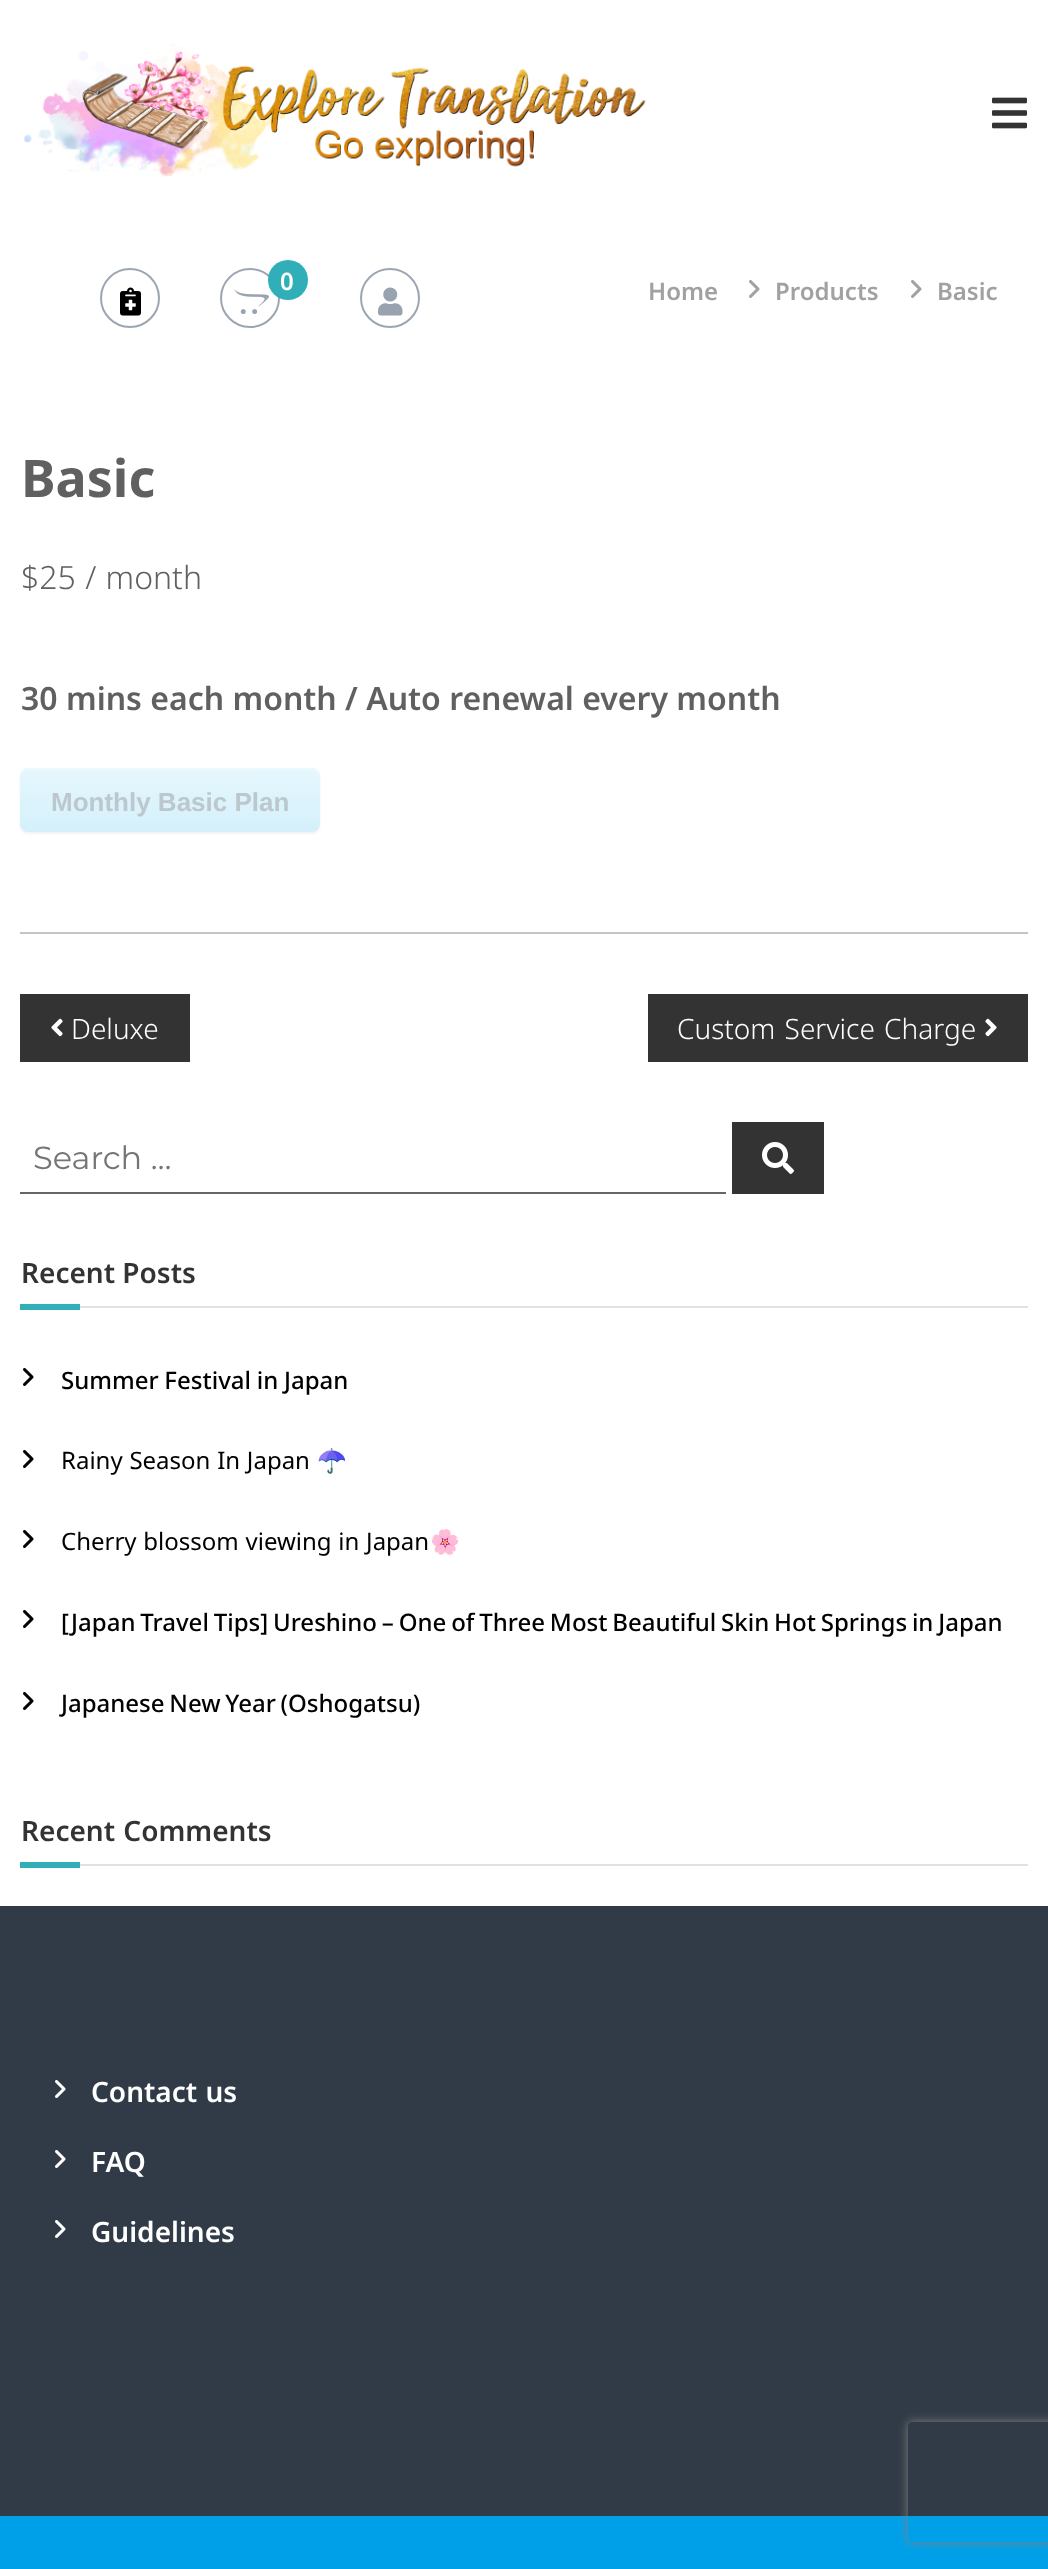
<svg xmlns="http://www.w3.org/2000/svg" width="1048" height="2569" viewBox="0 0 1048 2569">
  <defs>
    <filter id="blur1" x="-50%" y="-200%" width="200%" height="500%"><feGaussianBlur stdDeviation="1"/></filter>
    <linearGradient id="g1" gradientUnits="userSpaceOnUse" x1="20" y1="768" x2="20" y2="832"><stop offset="0" stop-color="#e6f7fd"/><stop offset="1" stop-color="#d4f0fb"/></linearGradient>
    <clipPath id="clip1"><path d="M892 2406H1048V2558H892ZM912 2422H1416C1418 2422 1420 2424 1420 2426V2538C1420 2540 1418 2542 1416 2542H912C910 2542 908 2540 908 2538V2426C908 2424 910 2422 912 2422Z" clip-rule="evenodd"/></clipPath>
    <filter id="blur2" x="-50%" y="-200%" width="200%" height="500%"><feGaussianBlur stdDeviation="5"/></filter>
  </defs>
  <rect width="100%" height="100%" fill="#ffffff"/>
  <image x="24" y="44" width="622" height="133" href="img1.png"/>
  <image x="992" y="97" width="35" height="32" href="img2.png"/>
  <circle cx="130" cy="298" r="29" fill="none" stroke="#9ca6b2" stroke-width="2"/>
  <image x="120" y="287" width="21" height="29" href="img3.png"/>
  <circle cx="250" cy="298" r="29" fill="none" stroke="#9ca6b2" stroke-width="2"/>
  <image x="234" y="289" width="35" height="25" href="img4.png"/>
  <circle cx="288" cy="280" r="20" fill="#30afb8"/>
  <text x="280" y="290" font-family="Noto Sans" font-size="24" font-weight="600" fill="#ffffff">0</text>
  <circle cx="390" cy="298" r="29" fill="none" stroke="#9ca6b2" stroke-width="2"/>
  <image x="378" y="287" width="25" height="29" href="img5.png"/>
  <text x="648" y="300" font-family="Noto Sans" font-size="24" font-weight="600" fill="#a1a1a1">Home</text>
  <image x="749" y="280" width="11" height="18" href="img6.png"/>
  <text x="775" y="300" font-family="Noto Sans" font-size="24" font-weight="600" fill="#a1a1a1">Products</text>
  <image x="911" y="280" width="11" height="18" href="img6.png"/>
  <text x="937" y="300" font-family="Noto Sans" font-size="24" font-weight="600" fill="#a1a1a1">Basic</text>
  <rect x="20" y="932" width="1008" height="2" fill="#c5c5c5"/>
  <text x="21" y="497" font-family="Noto Sans" font-size="52" font-weight="bold" fill="#606060">Basic</text>
  <text x="21" y="589" word-spacing="1" font-family="Noto Sans" font-size="32" font-weight="300" fill="#606060">$25 / month</text>
  <text x="21" y="710" font-family="Noto Sans" font-size="32" font-weight="600" fill="#606060">30 mins each month / Auto renewal every month</text>
  <rect x="20" y="770" width="300" height="64" rx="8" fill="#f3f3f3" filter="url(#blur1)"/>
  <rect x="20" y="768" width="300" height="64" rx="8" fill="url(#g1)"/>
  <path d="M28 770H312C316 770 320 774 320 778C320 773 318 768 312 768H26C21 769 20 774 20 778C20 774 24 770 28 770Z" fill="#ecf9fe"/>
  <text x="51" y="811" font-family="Liberation Sans" font-size="26" font-weight="bold" fill="#bcc8cd">Monthly Basic Plan</text>
  <rect x="20" y="994" width="170" height="68" fill="#333333"/>
  <image x="51" y="1018" width="12" height="19" href="img7.png"/>
  <text x="71" y="1039" font-family="Noto Sans" font-size="28" font-weight="300" fill="#ffffff">Deluxe</text>
  <rect x="648" y="994" width="380" height="68" fill="#333333"/>
  <text x="677" y="1039" word-spacing="2" font-family="Noto Sans" font-size="28" font-weight="300" fill="#ffffff">Custom Service Charge</text>
  <image x="985" y="1018" width="12" height="19" href="img8.png"/>
  <rect x="20" y="1192" width="706" height="2" fill="#666666"/>
  <text x="33" y="1169" font-family="Montserrat" font-size="32" fill="#757575">Search …</text>
  <rect x="732" y="1122" width="92" height="72" fill="#333333"/>
  <image x="762" y="1142" width="32" height="32" href="img9.png"/>
  <text x="21" y="1283" font-family="Noto Sans" font-size="28" font-weight="600" fill="#333333">Recent Posts</text>
  <rect x="20" y="1304" width="60" height="6" fill="#30afb8"/>
  <rect x="80" y="1306" width="948" height="2" fill="#e1e1e1"/>
  <image x="23" y="1368" width="11" height="18" href="img10.png"/>
  <text x="61" y="1389" word-spacing="-0.5" font-family="Noto Sans" font-size="24" font-weight="500" fill="#000000">Summer Festival in Japan</text>
  <image x="23" y="1450" width="11" height="18" href="img10.png"/>
  <text x="61" y="1469" word-spacing="0.5" font-family="Noto Sans" font-size="24" fill="#000000">Rainy Season In Japan</text>
  <text x="317" y="1469" font-family="Noto Color Emoji" font-size="24" fill="#000000">☂️</text>
  <image x="23" y="1530" width="11" height="18" href="img10.png"/>
  <text x="61" y="1550" word-spacing="0.5" font-family="Noto Sans" font-size="24" fill="#000000">Cherry blossom viewing in Japan</text>
  <text x="430" y="1550" font-family="Noto Color Emoji" font-size="24" fill="#000000">🌸</text>
  <image x="23" y="1610" width="11" height="18" href="img10.png"/>
  <text x="61" y="1631" word-spacing="-1.4" font-family="Noto Sans" font-size="24" font-weight="500" fill="#000000">[Japan Travel Tips] Ureshino – One of Three Most Beautiful Skin Hot Springs in Japan</text>
  <image x="23" y="1692" width="11" height="18" href="img10.png"/>
  <text x="61" y="1712" word-spacing="-1.5" font-family="Noto Sans" font-size="24" font-weight="500" fill="#000000">Japanese New Year (Oshogatsu)</text>
  <text x="21" y="1841" word-spacing="1" font-family="Noto Sans" font-size="28" font-weight="600" fill="#333333">Recent Comments</text>
  <rect x="20" y="1862" width="60" height="6" fill="#30afb8"/>
  <rect x="80" y="1864" width="948" height="2" fill="#e1e1e1"/>
  <rect x="0" y="1906" width="1048" height="610" fill="#313b48"/>
  <image x="55" y="2080" width="11" height="18" href="img11.png"/>
  <text x="91" y="2102" word-spacing="1" font-family="Noto Sans" font-size="28" font-weight="600" fill="#ffffff">Contact us</text>
  <image x="55" y="2150" width="11" height="18" href="img11.png"/>
  <text x="91" y="2172" font-family="Noto Sans" font-size="28" font-weight="600" fill="#ffffff">FAQ</text>
  <image x="55" y="2220" width="11" height="18" href="img11.png"/>
  <text x="91" y="2242" font-family="Noto Sans" font-size="28" font-weight="600" fill="#ffffff">Guidelines</text>
  <rect x="0" y="2516" width="1048" height="53" fill="#00a0e9"/>
  <g clip-path="url(#clip1)">
    <rect x="908" y="2422" width="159" height="120" rx="4" fill="#808080" filter="url(#blur2)"/>
  </g>
</svg>
